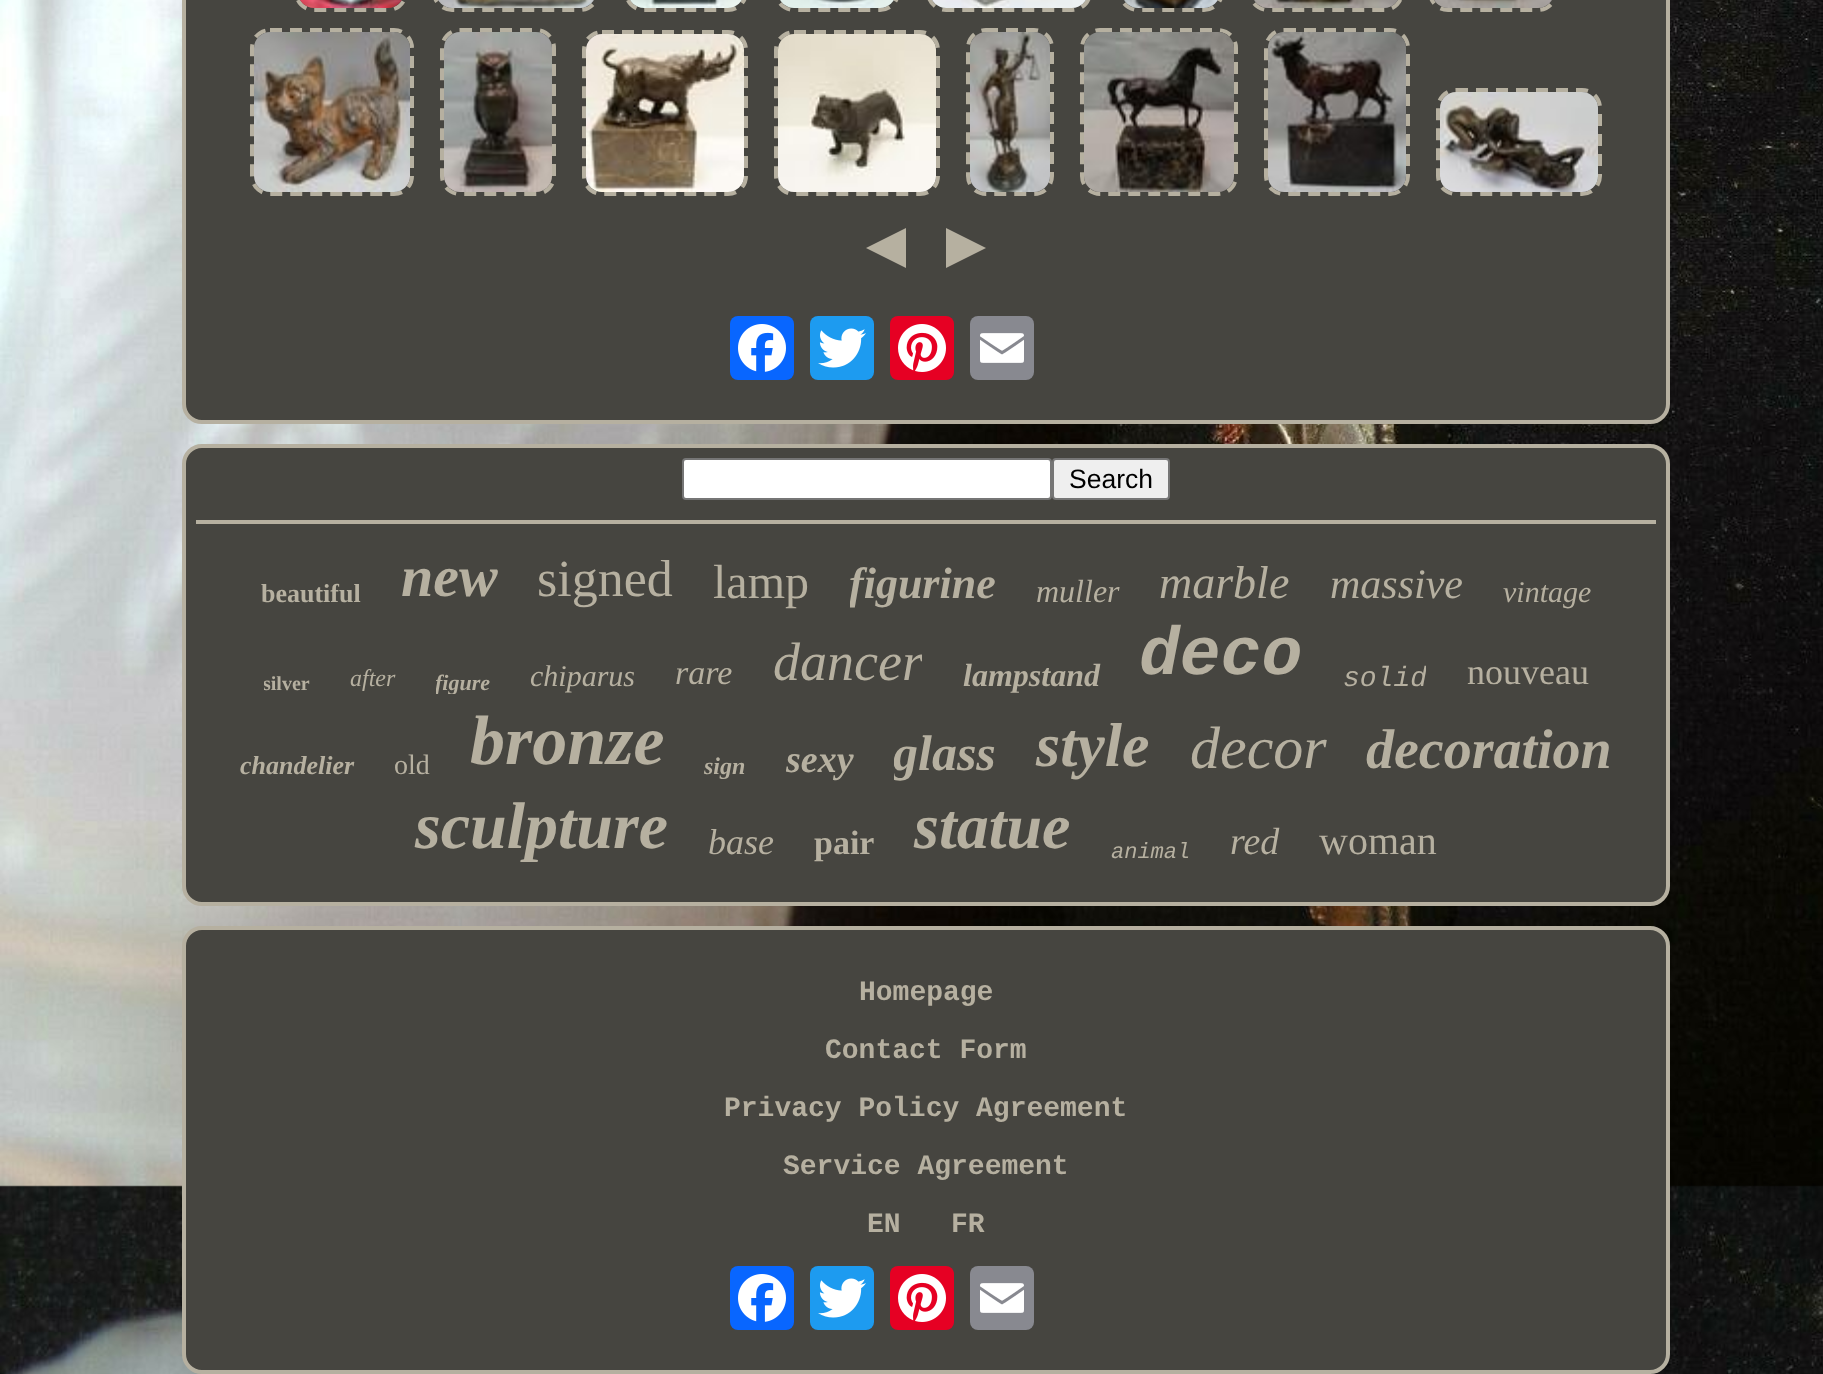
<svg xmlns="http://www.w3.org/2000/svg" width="1823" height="1374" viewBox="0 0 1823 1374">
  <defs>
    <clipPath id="clip1"><rect x="850" y="558" width="146" height="52"/></clipPath>
    <clipPath id="clip2"><rect x="264" y="672" width="46" height="22"/></clipPath>
    <clipPath id="clip3"><rect x="436" y="670" width="54" height="24"/></clipPath>
    <clipPath id="clip4"><rect x="772" y="632" width="150" height="62"/></clipPath>
    <clipPath id="clip5"><rect x="1342" y="662" width="84" height="32"/></clipPath>
    <clipPath id="clip6"><rect x="786" y="738" width="68" height="44"/></clipPath>
    <clipPath id="clip7"><rect x="894" y="726" width="102" height="56"/></clipPath>
  </defs>
  <rect width="100%" height="100%" fill="#ffffff"/>
  <image x="0" y="0" width="1823" height="1374" href="img1.png"/>
  <rect x="184" y="-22" width="1484" height="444" rx="18" fill="#464540" stroke="#b6b0a0" stroke-width="4"/>
  <path d="M314-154H388C398-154 406-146 406-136V-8C406 2 398 10 388 10H314C304 10 296 2 296-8V-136C296-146 304-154 314-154Z" fill="none" stroke="#b6b0a0" stroke-width="4" stroke-dasharray="12 8"/>
  <image x="300" y="0" width="102" height="8" href="img2.png"/>
  <path d="M452-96H580C590-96 598-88 598-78V-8C598 2 590 10 580 10H452C442 10 434 2 434-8V-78C434-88 442-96 452-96Z" fill="none" stroke="#b6b0a0" stroke-width="4" stroke-dasharray="12 8"/>
  <image x="438" y="0" width="156" height="8" href="img3.png"/>
  <path d="M644-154H728C738-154 746-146 746-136V-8C746 2 738 10 728 10H644C634 10 626 2 626-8V-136C626-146 634-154 644-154Z" fill="none" stroke="#b6b0a0" stroke-width="4" stroke-dasharray="12 8"/>
  <image x="630" y="0" width="112" height="8" href="img4.png"/>
  <path d="M794-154H880C890-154 898-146 898-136V-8C898 2 890 10 880 10H794C784 10 776 2 776-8V-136C776-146 784-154 794-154Z" fill="none" stroke="#b6b0a0" stroke-width="4" stroke-dasharray="12 8"/>
  <image x="780" y="0" width="114" height="8" href="img5.png"/>
  <path d="M946-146H1072C1082-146 1090-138 1090-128V-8C1090 2 1082 10 1072 10H946C936 10 928 2 928-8V-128C928-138 936-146 946-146Z" fill="none" stroke="#b6b0a0" stroke-width="4" stroke-dasharray="12 8"/>
  <image x="932" y="0" width="154" height="8" href="img6.png"/>
  <path d="M1138-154H1204C1214-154 1222-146 1222-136V-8C1222 2 1214 10 1204 10H1138C1128 10 1120 2 1120-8V-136C1120-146 1128-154 1138-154Z" fill="none" stroke="#b6b0a0" stroke-width="4" stroke-dasharray="12 8"/>
  <image x="1124" y="0" width="94" height="8" href="img7.png"/>
  <path d="M1268-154H1384C1394-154 1402-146 1402-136V-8C1402 2 1394 10 1384 10H1268C1258 10 1250 2 1250-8V-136C1250-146 1258-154 1268-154Z" fill="none" stroke="#b6b0a0" stroke-width="4" stroke-dasharray="12 8"/>
  <image x="1254" y="0" width="144" height="8" href="img8.png"/>
  <path d="M1448-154H1538C1548-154 1556-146 1556-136V-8C1556 2 1548 10 1538 10H1448C1438 10 1430 2 1430-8V-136C1430-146 1438-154 1448-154Z" fill="none" stroke="#b6b0a0" stroke-width="4" stroke-dasharray="12 8"/>
  <image x="1434" y="0" width="118" height="8" href="img9.png"/>
  <path d="M270 30H394C404 30 412 38 412 48V176C412 186 404 194 394 194H270C260 194 252 186 252 176V48C252 38 260 30 270 30Z" fill="none" stroke="#b6b0a0" stroke-width="4" stroke-dasharray="12 8"/>
  <image x="254" y="32" width="156" height="160" href="img10.png"/>
  <path d="M460 30H536C546 30 554 38 554 48V176C554 186 546 194 536 194H460C450 194 442 186 442 176V48C442 38 450 30 460 30Z" fill="none" stroke="#b6b0a0" stroke-width="4" stroke-dasharray="12 8"/>
  <image x="444" y="32" width="108" height="160" href="img11.png"/>
  <path d="M602 32H728C738 32 746 40 746 50V176C746 186 738 194 728 194H602C592 194 584 186 584 176V50C584 40 592 32 602 32Z" fill="none" stroke="#b6b0a0" stroke-width="4" stroke-dasharray="12 8"/>
  <image x="586" y="34" width="158" height="158" href="img12.png"/>
  <path d="M794 32H920C930 32 938 40 938 50V176C938 186 930 194 920 194H794C784 194 776 186 776 176V50C776 40 784 32 794 32Z" fill="none" stroke="#b6b0a0" stroke-width="4" stroke-dasharray="12 8"/>
  <image x="778" y="34" width="158" height="158" href="img13.png"/>
  <path d="M986 30H1034C1044 30 1052 38 1052 48V176C1052 186 1044 194 1034 194H986C976 194 968 186 968 176V48C968 38 976 30 986 30Z" fill="none" stroke="#b6b0a0" stroke-width="4" stroke-dasharray="12 8"/>
  <image x="970" y="32" width="80" height="160" href="img14.png"/>
  <path d="M1100 30H1218C1228 30 1236 38 1236 48V176C1236 186 1228 194 1218 194H1100C1090 194 1082 186 1082 176V48C1082 38 1090 30 1100 30Z" fill="none" stroke="#b6b0a0" stroke-width="4" stroke-dasharray="12 8"/>
  <image x="1084" y="32" width="150" height="160" href="img15.png"/>
  <path d="M1284 30H1390C1400 30 1408 38 1408 48V176C1408 186 1400 194 1390 194H1284C1274 194 1266 186 1266 176V48C1266 38 1274 30 1284 30Z" fill="none" stroke="#b6b0a0" stroke-width="4" stroke-dasharray="12 8"/>
  <image x="1268" y="32" width="138" height="160" href="img16.png"/>
  <path d="M1456 90H1582C1592 90 1600 98 1600 108V176C1600 186 1592 194 1582 194H1456C1446 194 1438 186 1438 176V108C1438 98 1446 90 1456 90Z" fill="none" stroke="#b6b0a0" stroke-width="4" stroke-dasharray="12 8"/>
  <image x="1440" y="92" width="158" height="100" href="img17.png"/>
  <path d="M906 228V268L866 248Z" fill="#b6b0a0"/>
  <path d="M946 268V228L986 248Z" fill="#b6b0a0"/>
  <rect x="730" y="316" width="64" height="64" rx="8" fill="#0866ff"/>
  <image x="738" y="324" width="48" height="48" href="img18.png"/>
  <rect x="810" y="316" width="64" height="64" rx="8" fill="#1d9bf0"/>
  <image x="818" y="328" width="48" height="40" href="img19.png"/>
  <rect x="890" y="316" width="64" height="64" rx="8" fill="#e60023"/>
  <image x="898" y="324" width="48" height="48" href="img20.png"/>
  <rect x="970" y="316" width="64" height="64" rx="8" fill="#888990"/>
  <image x="980" y="333" width="44" height="30" href="img21.png"/>
  <rect x="184" y="446" width="1484" height="458" rx="18" fill="#464540" stroke="#b6b0a0" stroke-width="4"/>
  <rect x="683" y="459" width="368" height="40" rx="3" fill="#ffffff" stroke="#767676" stroke-width="2"/>
  <rect x="1053" y="459" width="116" height="40" rx="3" fill="#efefef" stroke="#767676" stroke-width="2"/>
  <text x="1069" y="488" font-family="Liberation Sans" font-size="26.5" fill="#000000">Search</text>
  <rect x="196" y="520" width="1460" height="4" fill="#b6b0a0"/>
  <text x="261" y="602" font-family="Liberation Serif" font-size="26" font-weight="bold" fill="#b6b0a0">beautiful</text>
  <text x="401" y="596" font-family="Liberation Serif" font-size="58" font-weight="bold" font-style="italic" fill="#b6b0a0">new</text>
  <text x="537" y="596" font-family="Liberation Serif" font-size="52" fill="#b6b0a0">signed</text>
  <text x="713" y="598" font-family="Liberation Serif" font-size="48" fill="#b6b0a0">lamp</text>
  <g clip-path="url(#clip1)">
    <text x="849" y="598" font-family="Liberation Serif" font-size="44" font-weight="bold" font-style="italic" fill="#b6b0a0">figurine</text>
  </g>
  <text x="1036" y="602" font-family="Liberation Serif" font-size="32" font-style="italic" fill="#b6b0a0">muller</text>
  <text x="1159" y="598" font-family="Liberation Serif" font-size="46" font-style="italic" fill="#b6b0a0">marble</text>
  <text x="1330" y="598" font-family="Liberation Serif" font-size="42" font-style="italic" fill="#b6b0a0">massive</text>
  <text x="1503" y="602" font-family="Liberation Serif" font-size="30" font-style="italic" fill="#b6b0a0">vintage</text>
  <g clip-path="url(#clip2)">
    <text x="263" y="690" font-family="Liberation Serif" font-size="20" font-weight="bold" fill="#b6b0a0">silver</text>
  </g>
  <text x="350" y="686" font-family="Liberation Serif" font-size="24" font-style="italic" fill="#b6b0a0">after</text>
  <g clip-path="url(#clip3)">
    <text x="435" y="690" font-family="Liberation Serif" font-size="22" font-weight="bold" font-style="italic" fill="#b6b0a0">figure</text>
  </g>
  <text x="530" y="686" font-family="Liberation Serif" font-size="30" font-style="italic" fill="#b6b0a0">chiparus</text>
  <text x="675" y="684" font-family="Liberation Serif" font-size="34" font-style="italic" fill="#b6b0a0">rare</text>
  <g clip-path="url(#clip4)">
    <text x="773" y="680" font-family="Liberation Serif" font-size="54" font-style="italic" fill="#b6b0a0">dancer</text>
  </g>
  <text x="963" y="686" font-family="Liberation Serif" font-size="32" font-weight="bold" font-style="italic" fill="#b6b0a0">lampstand</text>
  <text x="1139" y="674" font-family="Liberation Mono" font-size="68" font-weight="bold" font-style="italic" fill="#b6b0a0">deco</text>
  <g clip-path="url(#clip5)">
    <text x="1343" y="686" font-family="Liberation Mono" font-size="28" font-style="italic" fill="#b6b0a0">solid</text>
  </g>
  <text x="1467" y="684" font-family="Liberation Serif" font-size="36" fill="#b6b0a0">nouveau</text>
  <text x="240" y="774" font-family="Liberation Serif" font-size="26" font-weight="bold" font-style="italic" fill="#b6b0a0">chandelier</text>
  <text x="394" y="774" font-family="Liberation Serif" font-size="28" fill="#b6b0a0">old</text>
  <text x="470" y="764" font-family="Liberation Serif" font-size="70" font-weight="bold" font-style="italic" fill="#b6b0a0">bronze</text>
  <text x="704" y="774" font-family="Liberation Serif" font-size="24" font-weight="bold" font-style="italic" fill="#b6b0a0">sign</text>
  <g clip-path="url(#clip6)">
    <text x="786" y="772" font-family="Liberation Serif" font-size="38" font-weight="bold" font-style="italic" fill="#b6b0a0">sexy</text>
  </g>
  <g clip-path="url(#clip7)">
    <text x="893" y="770" font-family="Liberation Serif" font-size="50" font-weight="bold" font-style="italic" fill="#b6b0a0">glass</text>
  </g>
  <text x="1036" y="766" font-family="Liberation Serif" font-size="62" font-weight="bold" font-style="italic" fill="#b6b0a0">style</text>
  <text x="1190" y="768" font-family="Liberation Serif" font-size="60" font-style="italic" fill="#b6b0a0">decor</text>
  <text x="1366" y="768" font-family="Liberation Serif" font-size="56" font-weight="bold" font-style="italic" fill="#b6b0a0">decoration</text>
  <text x="415" y="848" font-family="Liberation Serif" font-size="66" font-weight="bold" font-style="italic" fill="#b6b0a0">sculpture</text>
  <text x="708" y="854" font-family="Liberation Serif" font-size="36" font-style="italic" fill="#b6b0a0">base</text>
  <text x="814" y="854" font-family="Liberation Serif" font-size="34" font-weight="bold" fill="#b6b0a0">pair</text>
  <text x="914" y="848" font-family="Liberation Serif" font-size="64" font-weight="bold" font-style="italic" fill="#b6b0a0">statue</text>
  <text x="1111" y="858" font-family="Liberation Mono" font-size="22" font-style="italic" fill="#b6b0a0">animal</text>
  <text x="1230" y="854" font-family="Liberation Serif" font-size="38" font-style="italic" fill="#b6b0a0">red</text>
  <text x="1319" y="854" font-family="Liberation Serif" font-size="40" fill="#b6b0a0">woman</text>
  <rect x="184" y="928" width="1484" height="444" rx="18" fill="#464540" stroke="#b6b0a0" stroke-width="4"/>
  <text x="859" y="1000" font-family="Liberation Mono" font-size="28" font-weight="bold" fill="#b6b0a0">Homepage</text>
  <text x="825" y="1058" font-family="Liberation Mono" font-size="28" font-weight="bold" fill="#b6b0a0">Contact Form</text>
  <text x="724" y="1116" font-family="Liberation Mono" font-size="28" font-weight="bold" fill="#b6b0a0">Privacy Policy Agreement</text>
  <text x="783" y="1174" font-family="Liberation Mono" font-size="28" font-weight="bold" fill="#b6b0a0">Service Agreement</text>
  <text x="867" y="1232" font-family="Liberation Mono" font-size="28" font-weight="bold" fill="#b6b0a0">EN</text>
  <text x="951" y="1232" font-family="Liberation Mono" font-size="28" font-weight="bold" fill="#b6b0a0">FR</text>
  <rect x="730" y="1266" width="64" height="64" rx="8" fill="#0866ff"/>
  <image x="738" y="1274" width="48" height="48" href="img18.png"/>
  <rect x="810" y="1266" width="64" height="64" rx="8" fill="#1d9bf0"/>
  <image x="818" y="1278" width="48" height="40" href="img19.png"/>
  <rect x="890" y="1266" width="64" height="64" rx="8" fill="#e60023"/>
  <image x="898" y="1274" width="48" height="48" href="img20.png"/>
  <rect x="970" y="1266" width="64" height="64" rx="8" fill="#888990"/>
  <image x="980" y="1283" width="44" height="30" href="img21.png"/>
</svg>
